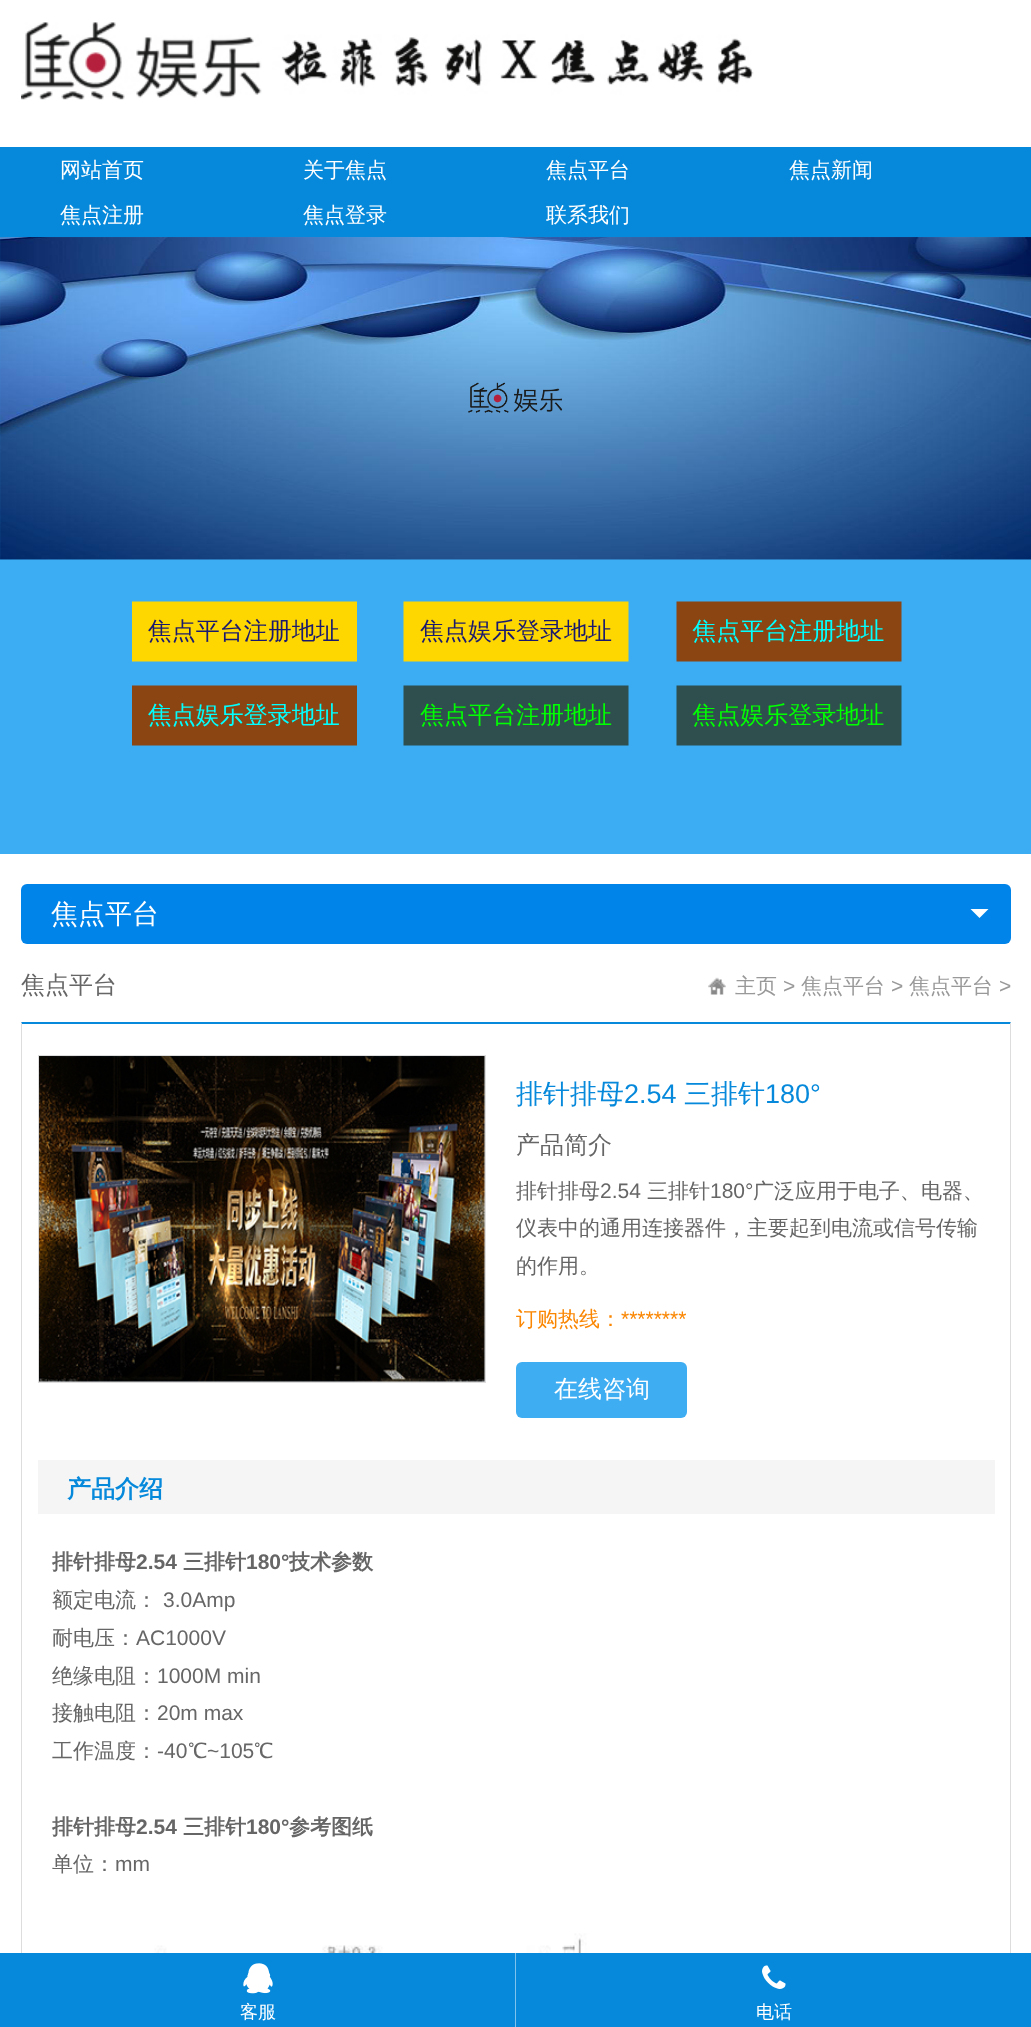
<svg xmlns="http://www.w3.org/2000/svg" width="1031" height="2027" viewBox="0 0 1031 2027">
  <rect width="100%" height="100%" fill="#ffffff"/>
  <image x="21" y="22" width="733" height="78" href="img1.png"/>
  <rect x="0" y="147" width="1031" height="90" fill="#0689db"/>
  <text x="60" y="177" font-family="WenQuanYi Zen Hei" font-size="21" font-weight="500" fill="#ffffff">网站首页</text>
  <text x="303" y="177" font-family="WenQuanYi Zen Hei" font-size="21" font-weight="500" fill="#ffffff">关于焦点</text>
  <text x="546" y="177" font-family="WenQuanYi Zen Hei" font-size="21" font-weight="500" fill="#ffffff">焦点平台</text>
  <text x="789" y="177" font-family="WenQuanYi Zen Hei" font-size="21" font-weight="500" fill="#ffffff">焦点新闻</text>
  <text x="60" y="222" font-family="WenQuanYi Zen Hei" font-size="21" font-weight="500" fill="#ffffff">焦点注册</text>
  <text x="303" y="222" font-family="WenQuanYi Zen Hei" font-size="21" font-weight="500" fill="#ffffff">焦点登录</text>
  <text x="546" y="222" font-family="WenQuanYi Zen Hei" font-size="21" font-weight="500" fill="#ffffff">联系我们</text>
  <rect x="0" y="237" width="1031" height="617" fill="#3dadf3"/>
  <image x="0" y="237" width="1031" height="323" href="img2.png"/>
  <image x="132" y="601" width="770" height="145" href="img3.png"/>
  <rect x="21" y="884" width="990" height="60" rx="6" fill="#0084e9"/>
  <text x="51" y="923" font-family="WenQuanYi Zen Hei" font-size="27" font-weight="500" fill="#ffffff">焦点平台</text>
  <path d="M970.5 909H988.5L979.5 918Z" fill="#ffffff"/>
  <text x="21" y="993" font-family="WenQuanYi Zen Hei" font-size="24" font-weight="500" fill="#666666">焦点平台</text>
  <image x="708" y="977" width="18" height="18" href="img4.png"/>
  <text x="735" y="993" font-family="WenQuanYi Zen Hei" font-size="21" font-weight="500" fill="#999999">主页</text>
  <text x="783" y="993" font-family="Liberation Sans" font-size="21" fill="#999999">&gt;</text>
  <text x="801" y="993" font-family="WenQuanYi Zen Hei" font-size="21" font-weight="500" fill="#999999">焦点平台</text>
  <text x="891" y="993" font-family="Liberation Sans" font-size="21" fill="#999999">&gt;</text>
  <text x="909" y="993" font-family="WenQuanYi Zen Hei" font-size="21" font-weight="500" fill="#999999">焦点平台</text>
  <text x="999" y="993" font-family="Liberation Sans" font-size="21" fill="#999999">&gt;</text>
  <path d="M21 1022H1011L1010 1024H22Z" fill="#0689db"/>
  <path d="M1011 1022V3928L1010 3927V1024Z" fill="#dddddd"/>
  <path d="M21 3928V1022L22 1024V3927Z" fill="#dddddd"/>
  <rect x="39" y="1056" width="446" height="326" fill="none" stroke="#dddddd" stroke-width="2"/>
  <image x="39" y="1056" width="446" height="326" href="img5.png"/>
  <text x="516" y="1103" font-family="WenQuanYi Zen Hei" font-size="27" font-weight="500" fill="#0689db">排针排母</text>
  <text x="624" y="1103" font-family="Liberation Sans" font-size="27" fill="#0689db">2.54</text>
  <text x="684" y="1103" font-family="WenQuanYi Zen Hei" font-size="27" font-weight="500" fill="#0689db">三排针</text>
  <text x="765" y="1103" font-family="Liberation Sans" font-size="27" fill="#0689db">180°</text>
  <text x="516" y="1153" font-family="WenQuanYi Zen Hei" font-size="24" font-weight="500" fill="#666666">产品简介</text>
  <text x="516" y="1198" font-family="WenQuanYi Zen Hei" font-size="21" font-weight="500" fill="#666666">排针排母</text>
  <text x="600" y="1198" font-family="Liberation Sans" font-size="21" fill="#666666">2.54</text>
  <text x="647" y="1198" font-family="WenQuanYi Zen Hei" font-size="21" font-weight="500" fill="#666666">三排针</text>
  <text x="710" y="1198" font-family="Liberation Sans" font-size="21" fill="#666666">180°</text>
  <text x="753" y="1198" font-family="WenQuanYi Zen Hei" font-size="21" font-weight="500" fill="#666666">广泛应用于电子、电器、</text>
  <text x="516" y="1235" font-family="WenQuanYi Zen Hei" font-size="21" font-weight="500" fill="#666666">仪表中的通用连接器件，主要起到电流或信号传输</text>
  <text x="516" y="1273" font-family="WenQuanYi Zen Hei" font-size="21" font-weight="500" fill="#666666">的作用。</text>
  <text x="516" y="1326" font-family="WenQuanYi Zen Hei" font-size="21" font-weight="500" fill="#fa8602">订购热线：</text>
  <text x="621" y="1326" font-family="Liberation Sans" font-size="21" fill="#fa8602">********</text>
  <rect x="516" y="1362" width="171" height="56" rx="6" fill="#3eadf2"/>
  <text x="554" y="1397" font-family="WenQuanYi Zen Hei" font-size="24" font-weight="500" fill="#ffffff">在线咨询</text>
  <rect x="38" y="1460" width="957" height="54" fill="#f5f5f5"/>
  <text x="67" y="1497" font-family="WenQuanYi Zen Hei" font-size="24" font-weight="bold" fill="#0689db">产品介绍</text>
  <text x="52" y="1569" font-family="WenQuanYi Zen Hei" font-size="21" font-weight="bold" fill="#666666">排针排母</text>
  <text x="136" y="1569" font-family="Liberation Sans" font-size="21" font-weight="bold" fill="#666666">2.54</text>
  <text x="183" y="1569" font-family="WenQuanYi Zen Hei" font-size="21" font-weight="bold" fill="#666666">三排针</text>
  <text x="246" y="1569" font-family="Liberation Sans" font-size="21" font-weight="bold" fill="#666666">180°</text>
  <text x="289" y="1569" font-family="WenQuanYi Zen Hei" font-size="21" font-weight="bold" fill="#666666">技术参数</text>
  <text x="52" y="1607" font-family="WenQuanYi Zen Hei" font-size="21" font-weight="500" fill="#666666">额定电流：</text>
  <text x="163" y="1607" font-family="Liberation Sans" font-size="21" fill="#666666">3.0Amp</text>
  <text x="52" y="1645" font-family="WenQuanYi Zen Hei" font-size="21" font-weight="500" fill="#666666">耐电压：</text>
  <text x="136" y="1645" font-family="Liberation Sans" font-size="21" fill="#666666">AC1000V</text>
  <text x="52" y="1683" font-family="WenQuanYi Zen Hei" font-size="21" font-weight="500" fill="#666666">绝缘电阻：</text>
  <text x="157" y="1683" font-family="Liberation Sans" font-size="21" fill="#666666">1000M min</text>
  <text x="52" y="1720" font-family="WenQuanYi Zen Hei" font-size="21" font-weight="500" fill="#666666">接触电阻：</text>
  <text x="157" y="1720" font-family="Liberation Sans" font-size="21" fill="#666666">20m max</text>
  <text x="52" y="1758" font-family="WenQuanYi Zen Hei" font-size="21" font-weight="500" fill="#666666">工作温度：</text>
  <text x="157" y="1758" font-family="Liberation Sans" font-size="21" fill="#666666">-40</text>
  <text x="188" y="1758" font-family="WenQuanYi Zen Hei" font-size="21" font-weight="500" fill="#666666">℃</text>
  <text x="207" y="1758" font-family="Liberation Sans" font-size="21" fill="#666666">~105</text>
  <text x="254" y="1758" font-family="WenQuanYi Zen Hei" font-size="21" font-weight="500" fill="#666666">℃</text>
  <text x="52" y="1834" font-family="WenQuanYi Zen Hei" font-size="21" font-weight="bold" fill="#666666">排针排母</text>
  <text x="136" y="1834" font-family="Liberation Sans" font-size="21" font-weight="bold" fill="#666666">2.54</text>
  <text x="183" y="1834" font-family="WenQuanYi Zen Hei" font-size="21" font-weight="bold" fill="#666666">三排针</text>
  <text x="246" y="1834" font-family="Liberation Sans" font-size="21" font-weight="bold" fill="#666666">180°</text>
  <text x="289" y="1834" font-family="WenQuanYi Zen Hei" font-size="21" font-weight="bold" fill="#666666">参考图纸</text>
  <text x="52" y="1871" font-family="WenQuanYi Zen Hei" font-size="21" font-weight="500" fill="#666666">单位：</text>
  <text x="115" y="1871" font-family="Liberation Sans" font-size="21" fill="#666666">mm</text>
  <image x="154" y="1933" width="481" height="20" href="img6.png"/>
  <rect x="0" y="1953" width="515" height="74" fill="#0689db"/>
  <image x="243" y="1963" width="30" height="31" href="img7.png"/>
  <rect x="515" y="1953" width="1" height="74" fill="#7fc2ec"/>
  <text x="240" y="2018" font-family="WenQuanYi Zen Hei" font-size="18" font-weight="500" fill="#ffffff">客服</text>
  <rect x="516" y="1953" width="515" height="74" fill="#0689db"/>
  <image x="762" y="1965" width="24" height="24" href="img8.png"/>
  <text x="756" y="2018" font-family="WenQuanYi Zen Hei" font-size="18" font-weight="500" fill="#ffffff">电话</text>
</svg>
